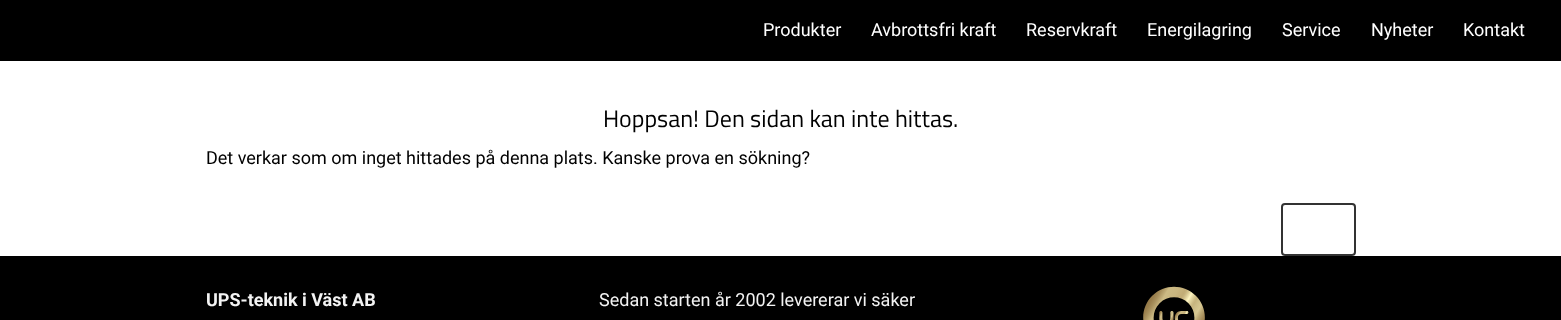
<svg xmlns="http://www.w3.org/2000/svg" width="1561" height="320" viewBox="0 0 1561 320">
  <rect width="100%" height="100%" fill="#ffffff"/>
  <rect x="0" y="0" width="1561" height="61" fill="#000000"/>
  <text x="763" y="36" font-family="Roboto" font-size="18" fill="#ffffff">Produkter</text>
  <text x="871" y="36" font-family="Roboto" font-size="18" fill="#ffffff">Avbrottsfri kraft</text>
  <text x="1026" y="36" font-family="Roboto" font-size="18" fill="#ffffff">Reservkraft</text>
  <text x="1147" y="36" font-family="Roboto" font-size="18" fill="#ffffff">Energilagring</text>
  <text x="1282" y="36" font-family="Roboto" font-size="18" fill="#ffffff">Service</text>
  <text x="1371" y="36" font-family="Roboto" font-size="18" fill="#ffffff">Nyheter</text>
  <text x="1463" y="36" font-family="Roboto" font-size="18" fill="#ffffff">Kontakt</text>
  <text x="603" y="127" font-family="Titillium Web" font-size="24" fill="#000000">Hoppsan! Den sidan kan inte hittas.</text>
  <text x="206" y="164" font-family="Roboto" font-size="18" fill="#000000">Det verkar som om inget hittades på denna plats. Kanske prova en sökning?</text>
  <rect x="1282" y="204" width="73" height="51" rx="3" fill="none" stroke="#333333" stroke-width="2"/>
  <rect x="0" y="256" width="1561" height="64" fill="#000000"/>
  <text x="206" y="306" font-family="Roboto" font-size="18" font-weight="bold" fill="#f3f3f3">UPS-teknik i Väst AB</text>
  <text x="599" y="306" font-family="Roboto" font-size="18" fill="#f3f3f3">Sedan starten år 2002 levererar vi säker</text>
  <image x="1143" y="286" width="62" height="34" href="img1.png"/>
</svg>
